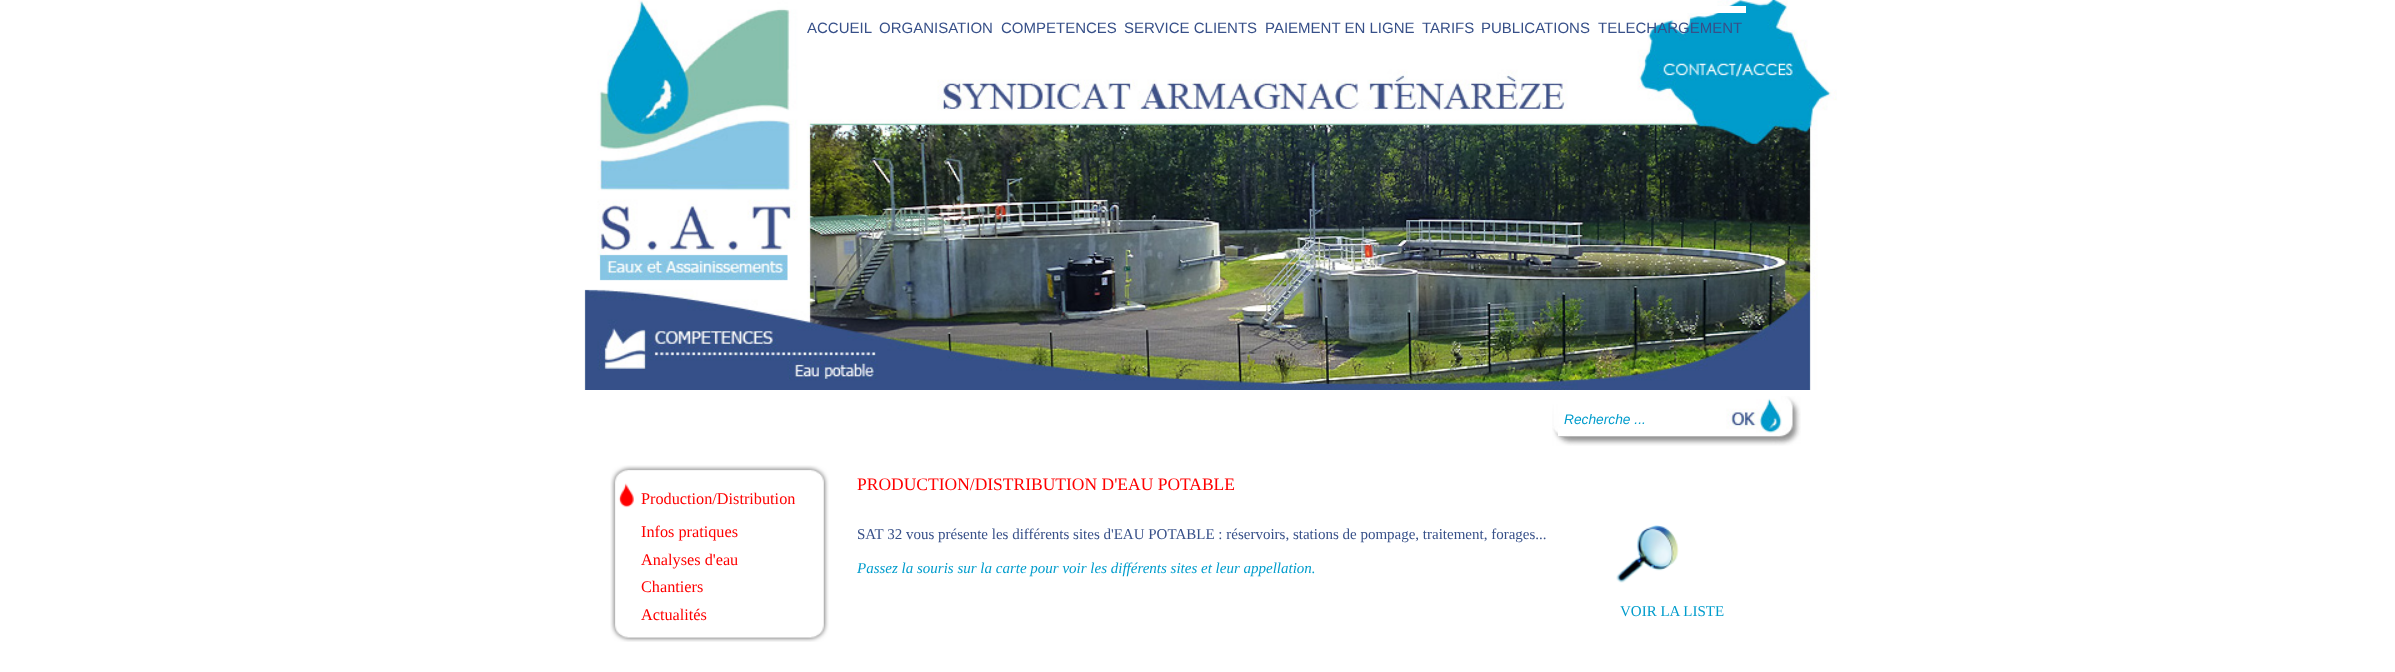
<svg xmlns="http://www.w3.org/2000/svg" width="2395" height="672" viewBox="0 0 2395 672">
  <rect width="100%" height="100%" fill="#ffffff"/>
  <image x="584" y="0" width="1253" height="390" href="img1.png"/>
  <text x="807" y="33" font-family="Liberation Sans" font-size="15" fill="#375089">ACCUEIL</text>
  <text x="879" y="33" font-family="Liberation Sans" font-size="15" fill="#375089">ORGANISATION</text>
  <text x="1001" y="33" font-family="Liberation Sans" font-size="15" fill="#375089">COMPETENCES</text>
  <text x="1124" y="33" font-family="Liberation Sans" font-size="15" fill="#375089">SERVICE CLIENTS</text>
  <text x="1265" y="33" font-family="Liberation Sans" font-size="15" fill="#375089">PAIEMENT EN LIGNE</text>
  <text x="1422" y="33" font-family="Liberation Sans" font-size="15" fill="#375089">TARIFS</text>
  <text x="1481" y="33" font-family="Liberation Sans" font-size="15" fill="#375089">PUBLICATIONS</text>
  <rect x="1687" y="6" width="59" height="7" fill="#ffffff"/>
  <text x="1598" y="33" font-family="Liberation Sans" font-size="15" fill="#375089">TELECHARGEMENT</text>
  <image x="1552" y="396" width="249" height="50" href="img2.png"/>
  <rect x="1558" y="428" width="8" height="8" fill="#ffffff"/>
  <text x="1564" y="424" font-family="Liberation Sans" font-size="13.75" font-style="italic" fill="#009ccc">Recherche ...</text>
  <image x="1726" y="398" width="56" height="35" href="img3.png"/>
  <image x="610" y="465" width="219" height="177" href="img4.png"/>
  <image x="618" y="483" width="16" height="25" href="img5.png"/>
  <text x="641" y="504" font-family="Liberation Serif" font-size="16.25" fill="#ff0000">Production/Distribution</text>
  <text x="641" y="537" font-family="Liberation Serif" font-size="16.25" fill="#ff0000">Infos pratiques</text>
  <text x="641" y="565" font-family="Liberation Serif" font-size="16.25" fill="#ff0000">Analyses d'eau</text>
  <text x="641" y="592" font-family="Liberation Serif" font-size="16.25" fill="#ff0000">Chantiers</text>
  <text x="641" y="620" font-family="Liberation Serif" font-size="16.25" fill="#ff0000">Actualités</text>
  <text x="857" y="490" font-family="Liberation Serif" font-size="17.5" fill="#ff0000">PRODUCTION/DISTRIBUTION D'EAU POTABLE</text>
  <text x="857" y="539" font-family="Liberation Serif" font-size="15" fill="#375089">SAT 32 vous présente les différents sites d'EAU POTABLE : réservoirs, stations de pompage, traitement, forages...</text>
  <text x="857" y="573" font-family="Liberation Serif" font-size="15" font-style="italic" fill="#009ccc">Passez la souris sur la carte pour voir les différents sites et leur appellation.</text>
  <image x="1616" y="525" width="63" height="58" href="img6.png"/>
  <text x="1620" y="616" font-family="Liberation Serif" font-size="15" fill="#009ccc">VOIR LA LISTE</text>
</svg>
